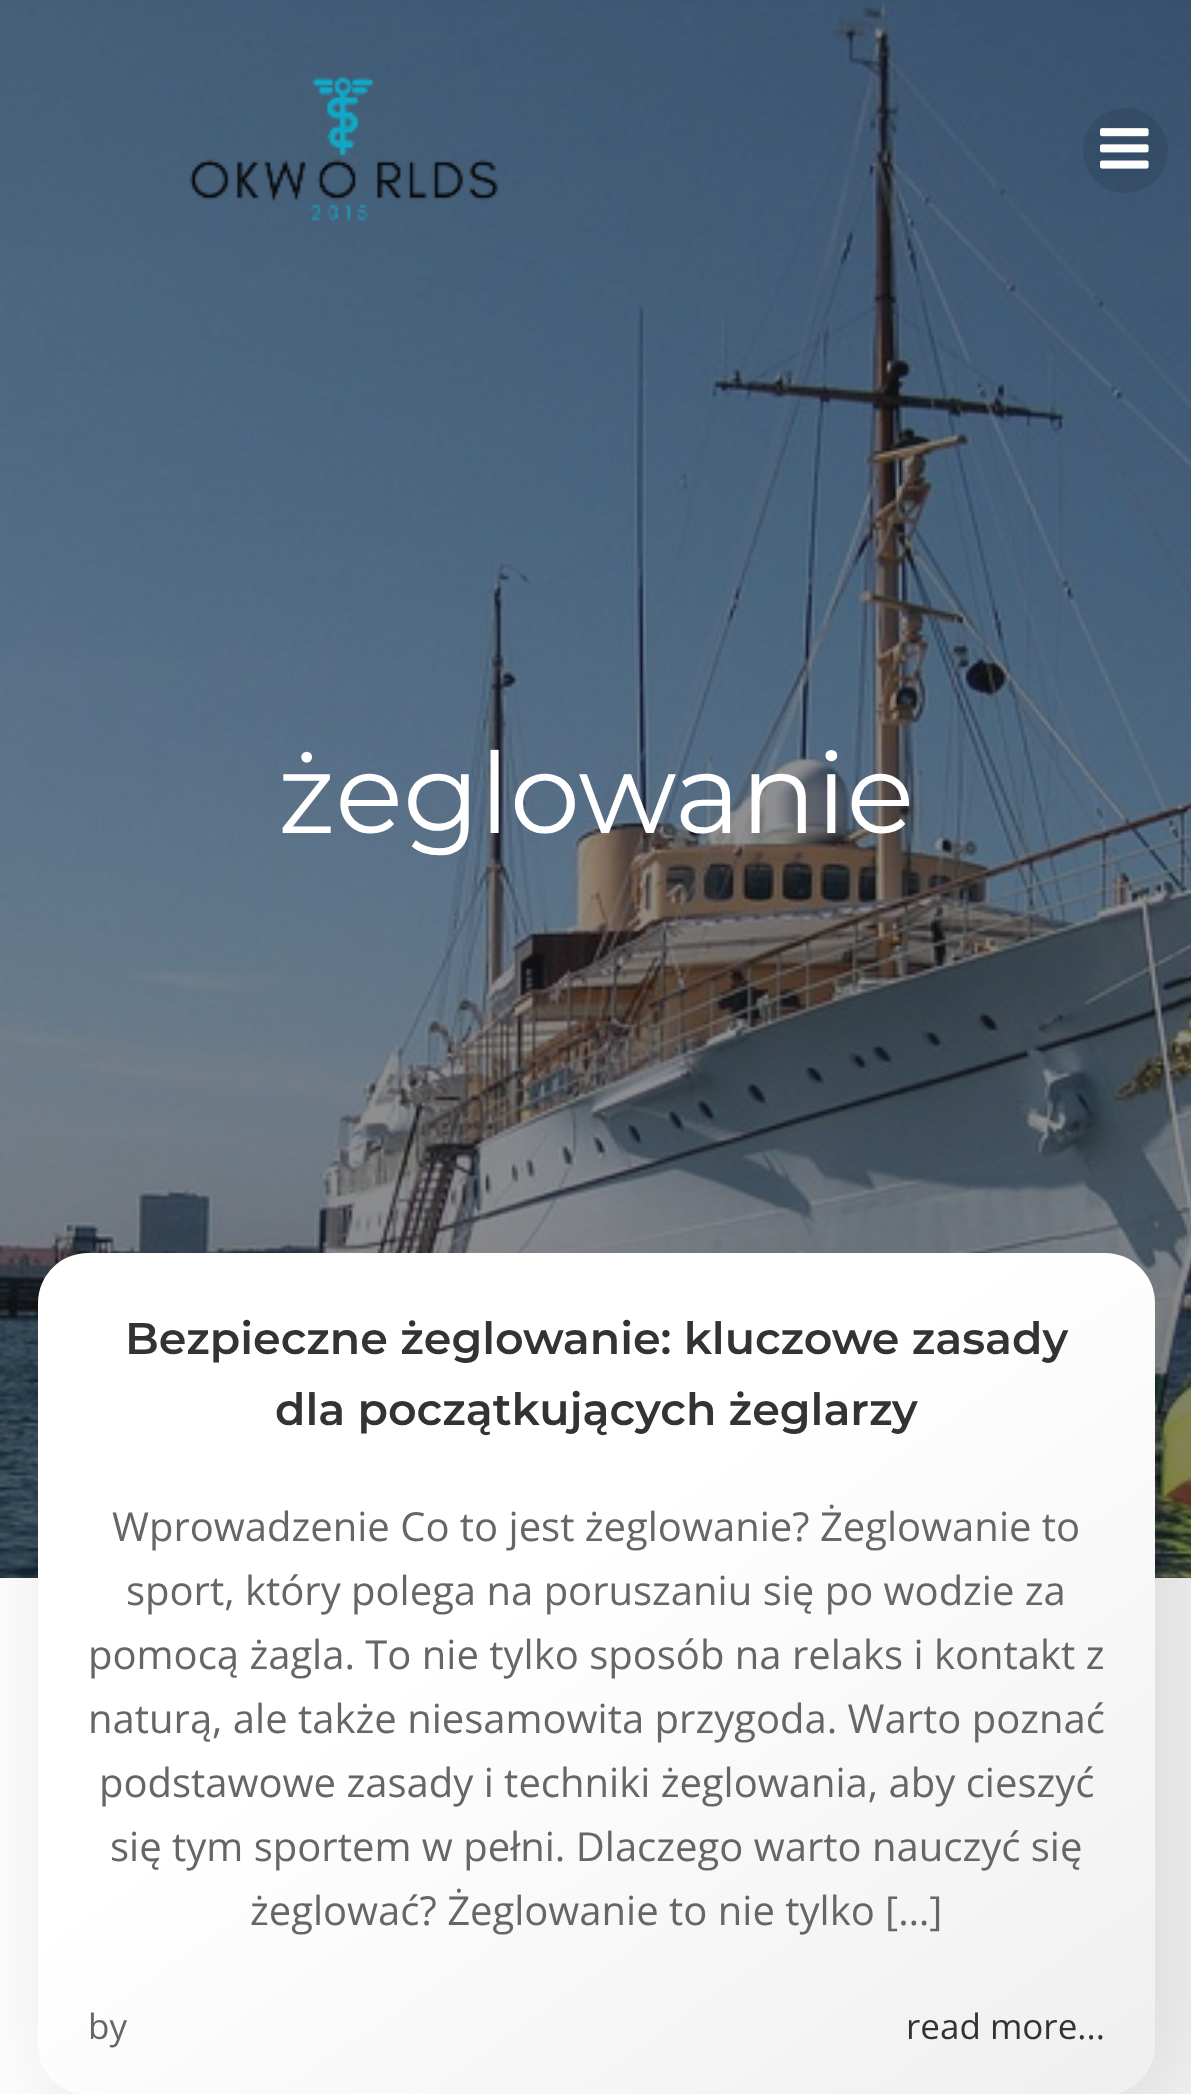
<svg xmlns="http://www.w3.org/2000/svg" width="1191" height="2094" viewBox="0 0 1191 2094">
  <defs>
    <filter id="blur1" x="-50%" y="-200%" width="200%" height="500%"><feGaussianBlur stdDeviation="75"/></filter>
    <linearGradient id="g1" gradientUnits="userSpaceOnUse" x1="215" y1="1129" x2="978" y2="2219"><stop offset="0.42" stop-color="#ffffff"/><stop offset="1" stop-color="#efefef"/></linearGradient>
  </defs>
  <rect width="100%" height="100%" fill="#ffffff"/>
  <image x="0" y="0" width="1191" height="1578" href="img3.png"/>
  <image x="189" y="76" width="310" height="145" href="img1.png"/>
  <circle cx="1125.5" cy="150.5" r="42.5" fill="#000000" fill-opacity="0.1"/>
  <image x="1100" y="128" width="49" height="41" href="img2.png"/>
  <text x="278" y="833" font-family="Montserrat" font-size="112" fill="#ffffff">żeglowanie</text>
  <rect x="83" y="1298" width="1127" height="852" rx="55" fill="#000000" fill-opacity="0.15" filter="url(#blur1)"/>
  <rect x="38" y="1253" width="1117" height="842" rx="50" fill="url(#g1)"/>
  <text x="125" y="1354" font-family="Montserrat" font-size="44.4" font-weight="600" fill="#333333">Bezpieczne żeglowanie: kluczowe zasady</text>
  <text x="275" y="1425" font-family="Montserrat" font-size="44.4" font-weight="600" fill="#333333">dla początkujących żeglarzy</text>
  <text x="112" y="1541" font-family="Open Sans" font-size="40" fill="#666666">Wprowadzenie Co to jest żeglowanie? Żeglowanie to</text>
  <text x="126" y="1605" font-family="Open Sans" font-size="40" fill="#666666">sport, który polega na poruszaniu się po wodzie za</text>
  <text x="88" y="1669" font-family="Open Sans" font-size="40" fill="#666666">pomocą żagla. To nie tylko sposób na relaks i kontakt z</text>
  <text x="88" y="1733" font-family="Open Sans" font-size="40" fill="#666666">naturą, ale także niesamowita przygoda. Warto poznać</text>
  <text x="99" y="1797" font-family="Open Sans" font-size="40" fill="#666666">podstawowe zasady i techniki żeglowania, aby cieszyć</text>
  <text x="110" y="1861" font-family="Open Sans" font-size="40" fill="#666666">się tym sportem w pełni. Dlaczego warto nauczyć się</text>
  <text x="250" y="1925" font-family="Open Sans" font-size="40" fill="#666666">żeglować? Żeglowanie to nie tylko […]</text>
  <text x="88" y="2039" font-family="Open Sans" font-size="35" fill="#666666">by</text>
  <text x="906" y="2039" font-family="Open Sans" font-size="35" fill="#333333">read more...</text>
</svg>
